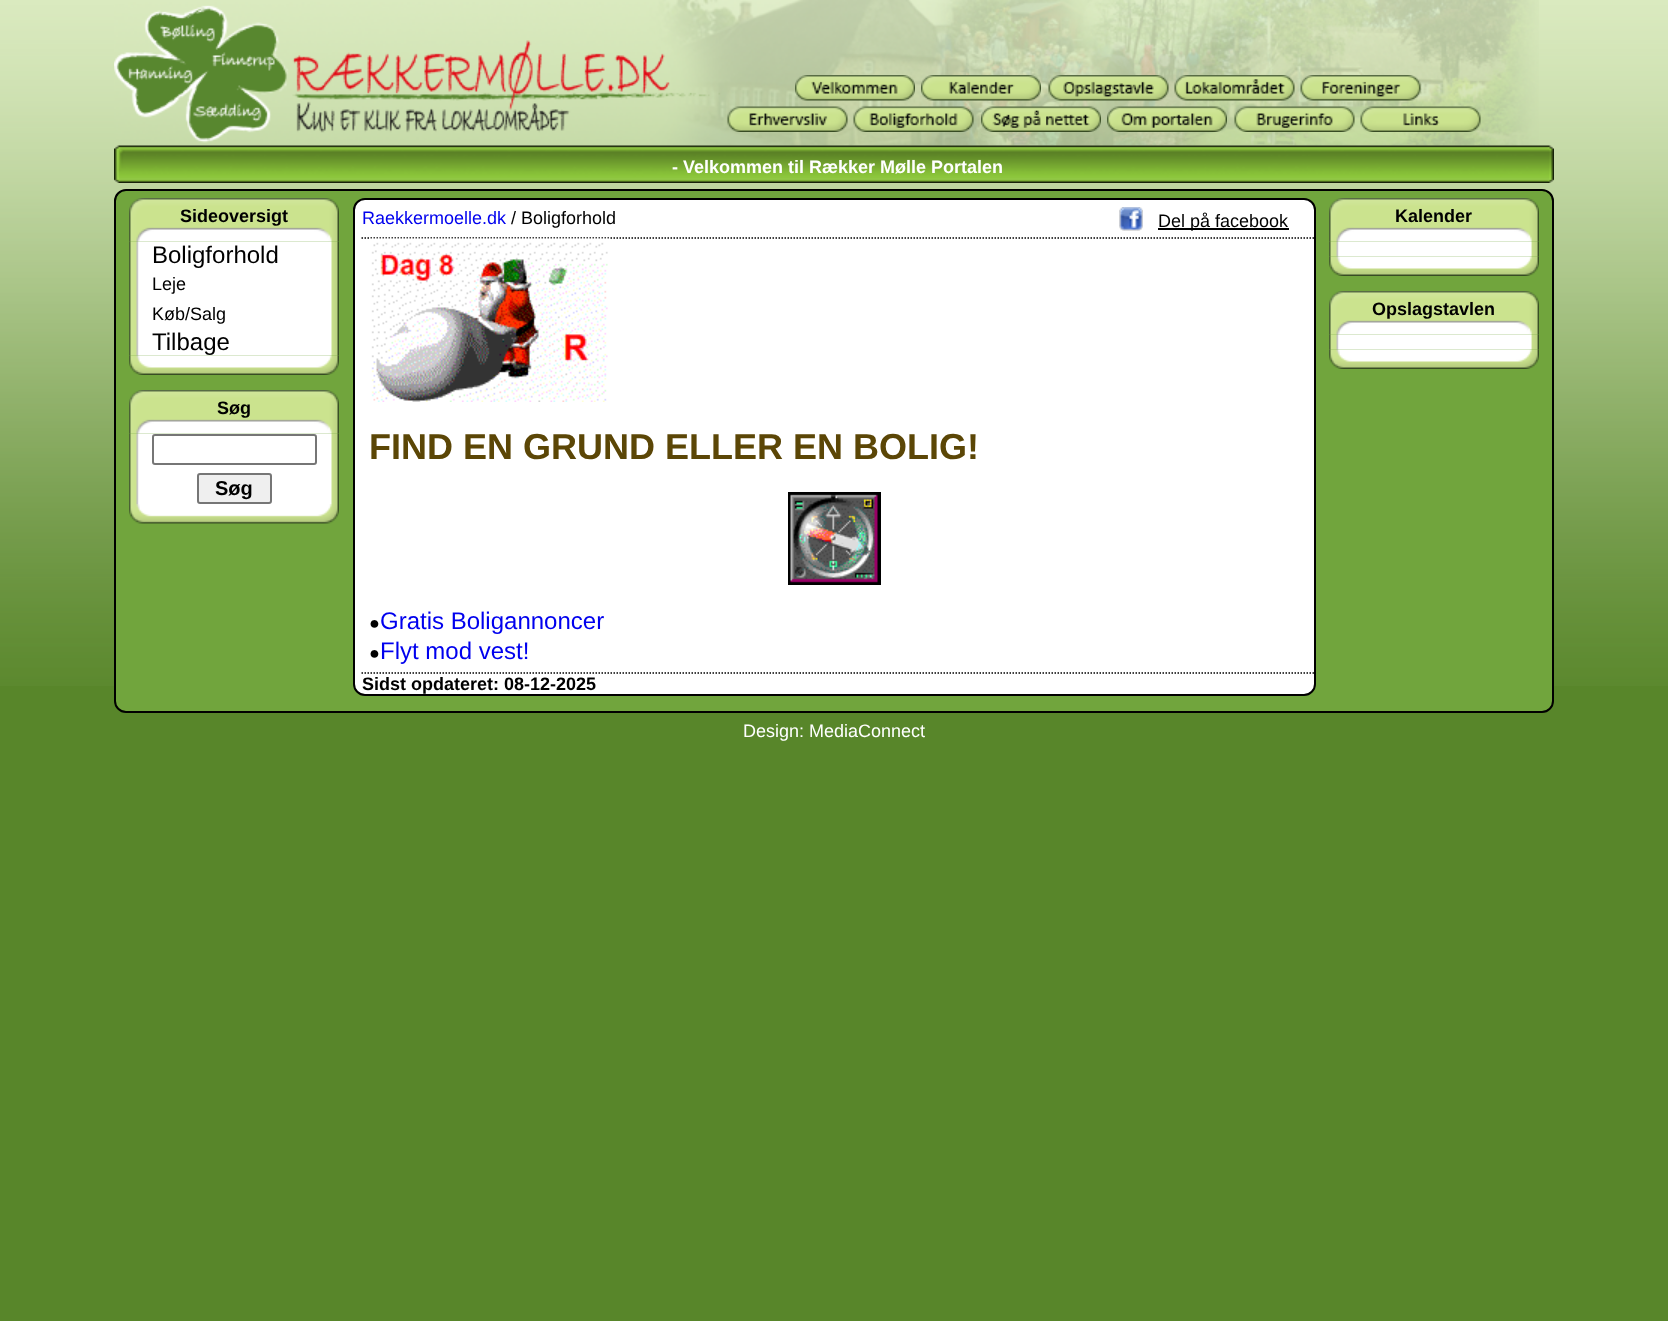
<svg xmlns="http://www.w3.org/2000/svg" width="1668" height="1321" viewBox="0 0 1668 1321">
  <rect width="100%" height="100%" fill="#58862a"/>
  <image x="0" y="0" width="1668" height="686" href="img1.png"/>
  <image x="114" y="0" width="1425" height="146" href="img2.png"/>
  <image x="795" y="75" width="120" height="26" href="img3.png"/>
  <image x="921" y="75" width="120" height="26" href="img4.png"/>
  <image x="1048" y="75" width="121" height="26" href="img5.png"/>
  <image x="1174" y="75" width="121" height="26" href="img6.png"/>
  <image x="1300" y="75" width="121" height="26" href="img7.png"/>
  <image x="727" y="106" width="121" height="26" href="img8.png"/>
  <image x="853" y="106" width="121" height="26" href="img9.png"/>
  <image x="981" y="106" width="120" height="26" href="img10.png"/>
  <image x="1107" y="106" width="120" height="26" href="img11.png"/>
  <image x="1234" y="106" width="121" height="26" href="img12.png"/>
  <image x="1360" y="106" width="121" height="26" href="img13.png"/>
  <image x="114" y="145" width="1440" height="38" href="img14.png"/>
  <text x="672" y="173" font-family="Liberation Sans" font-size="18" font-weight="bold" fill="#ffffff">- Velkommen til Rækker Mølle Portalen</text>
  <rect x="115" y="190" width="1438" height="522" rx="11" fill="#71a53d" stroke="#000000" stroke-width="2"/>
  <image x="129" y="198" width="210" height="44" href="img15.png"/>
  <text x="180" y="222" font-family="Liberation Sans" font-size="18" font-weight="bold" fill="#000000">Sideoversigt</text>
  <image x="129" y="241" width="210" height="115" href="img16.png"/>
  <text x="152" y="263" font-family="Liberation Sans" font-size="24" fill="#000000">Boligforhold</text>
  <text x="152" y="290" font-family="Liberation Sans" font-size="18" fill="#000000">Leje</text>
  <text x="152" y="320" font-family="Liberation Sans" font-size="18" fill="#000000">Køb/Salg</text>
  <text x="152" y="350" font-family="Liberation Sans" font-size="24" fill="#000000">Tilbage</text>
  <image x="129" y="355" width="210" height="20" href="img17.png"/>
  <image x="129" y="390" width="210" height="44" href="img15.png"/>
  <text x="217" y="414" font-family="Liberation Sans" font-size="18" font-weight="bold" fill="#000000">Søg</text>
  <image x="129" y="433" width="210" height="71" href="img18.png"/>
  <rect x="153" y="435" width="163" height="29" rx="2" fill="none" stroke="#767676" stroke-width="2"/>
  <rect x="198" y="474" width="73" height="29" rx="2" fill="#efefef" stroke="#767676" stroke-width="2"/>
  <text x="215" y="495" font-family="Liberation Sans" font-size="20" font-weight="bold" fill="#000000">Søg</text>
  <image x="129" y="504" width="210" height="20" href="img19.png"/>
  <rect x="354" y="199" width="961" height="496" rx="11" fill="#ffffff" stroke="#000000" stroke-width="2"/>
  <path d="M361.5 238H1314" fill="none" stroke="#000000" stroke-width="1.5" stroke-dasharray="1.5 1.5"/>
  <text x="362" y="224" font-family="Liberation Sans" font-size="18" fill="#0000ee">Raekkermoelle.dk</text>
  <text x="511" y="224" font-family="Liberation Sans" font-size="18" fill="#000000">/ Boligforhold</text>
  <image x="1119" y="207" width="24" height="24" href="img20.png"/>
  <rect x="1158" y="228" width="131" height="2" fill="#000000"/>
  <text x="1158" y="227" font-family="Liberation Sans" font-size="18" fill="#000000">Del på facebook</text>
  <image x="370" y="238" width="239" height="164" href="img21.png"/>
  <text x="369" y="459" font-family="Liberation Sans" font-size="36" font-weight="bold" fill="#5b4606">FIND EN GRUND ELLER EN BOLIG!</text>
  <rect x="789" y="493" width="91" height="91" fill="none" stroke="#000000" stroke-width="2"/>
  <image x="790" y="494" width="89" height="89" href="img22.png"/>
  <text x="369" y="629" font-family="Liberation Sans" font-size="18" fill="#000000">●</text>
  <text x="380" y="629" font-family="Liberation Sans" font-size="24" fill="#0000ee">Gratis Boligannoncer</text>
  <text x="369" y="659" font-family="Liberation Sans" font-size="18" fill="#000000">●</text>
  <text x="380" y="659" font-family="Liberation Sans" font-size="24" fill="#0000ee">Flyt mod vest!</text>
  <path d="M361.5 673H1314" fill="none" stroke="#000000" stroke-width="1.5" stroke-dasharray="1.5 1.5"/>
  <text x="362" y="690" font-family="Liberation Sans" font-size="18" font-weight="bold" fill="#000000">Sidst opdateret: 08-12-2025</text>
  <image x="1329" y="198" width="210" height="44" href="img23.png"/>
  <text x="1395" y="222" font-family="Liberation Sans" font-size="18" font-weight="bold" fill="#000000">Kalender</text>
  <image x="1329" y="241" width="210" height="16" href="img24.png"/>
  <image x="1329" y="256" width="210" height="20" href="img25.png"/>
  <image x="1329" y="291" width="210" height="44" href="img23.png"/>
  <text x="1372" y="315" font-family="Liberation Sans" font-size="18" font-weight="bold" fill="#000000">Opslagstavlen</text>
  <image x="1329" y="334" width="210" height="16" href="img24.png"/>
  <image x="1329" y="349" width="210" height="20" href="img25.png"/>
  <text x="743" y="737" font-family="Liberation Sans" font-size="18" fill="#ffffff">Design: MediaConnect</text>
</svg>
